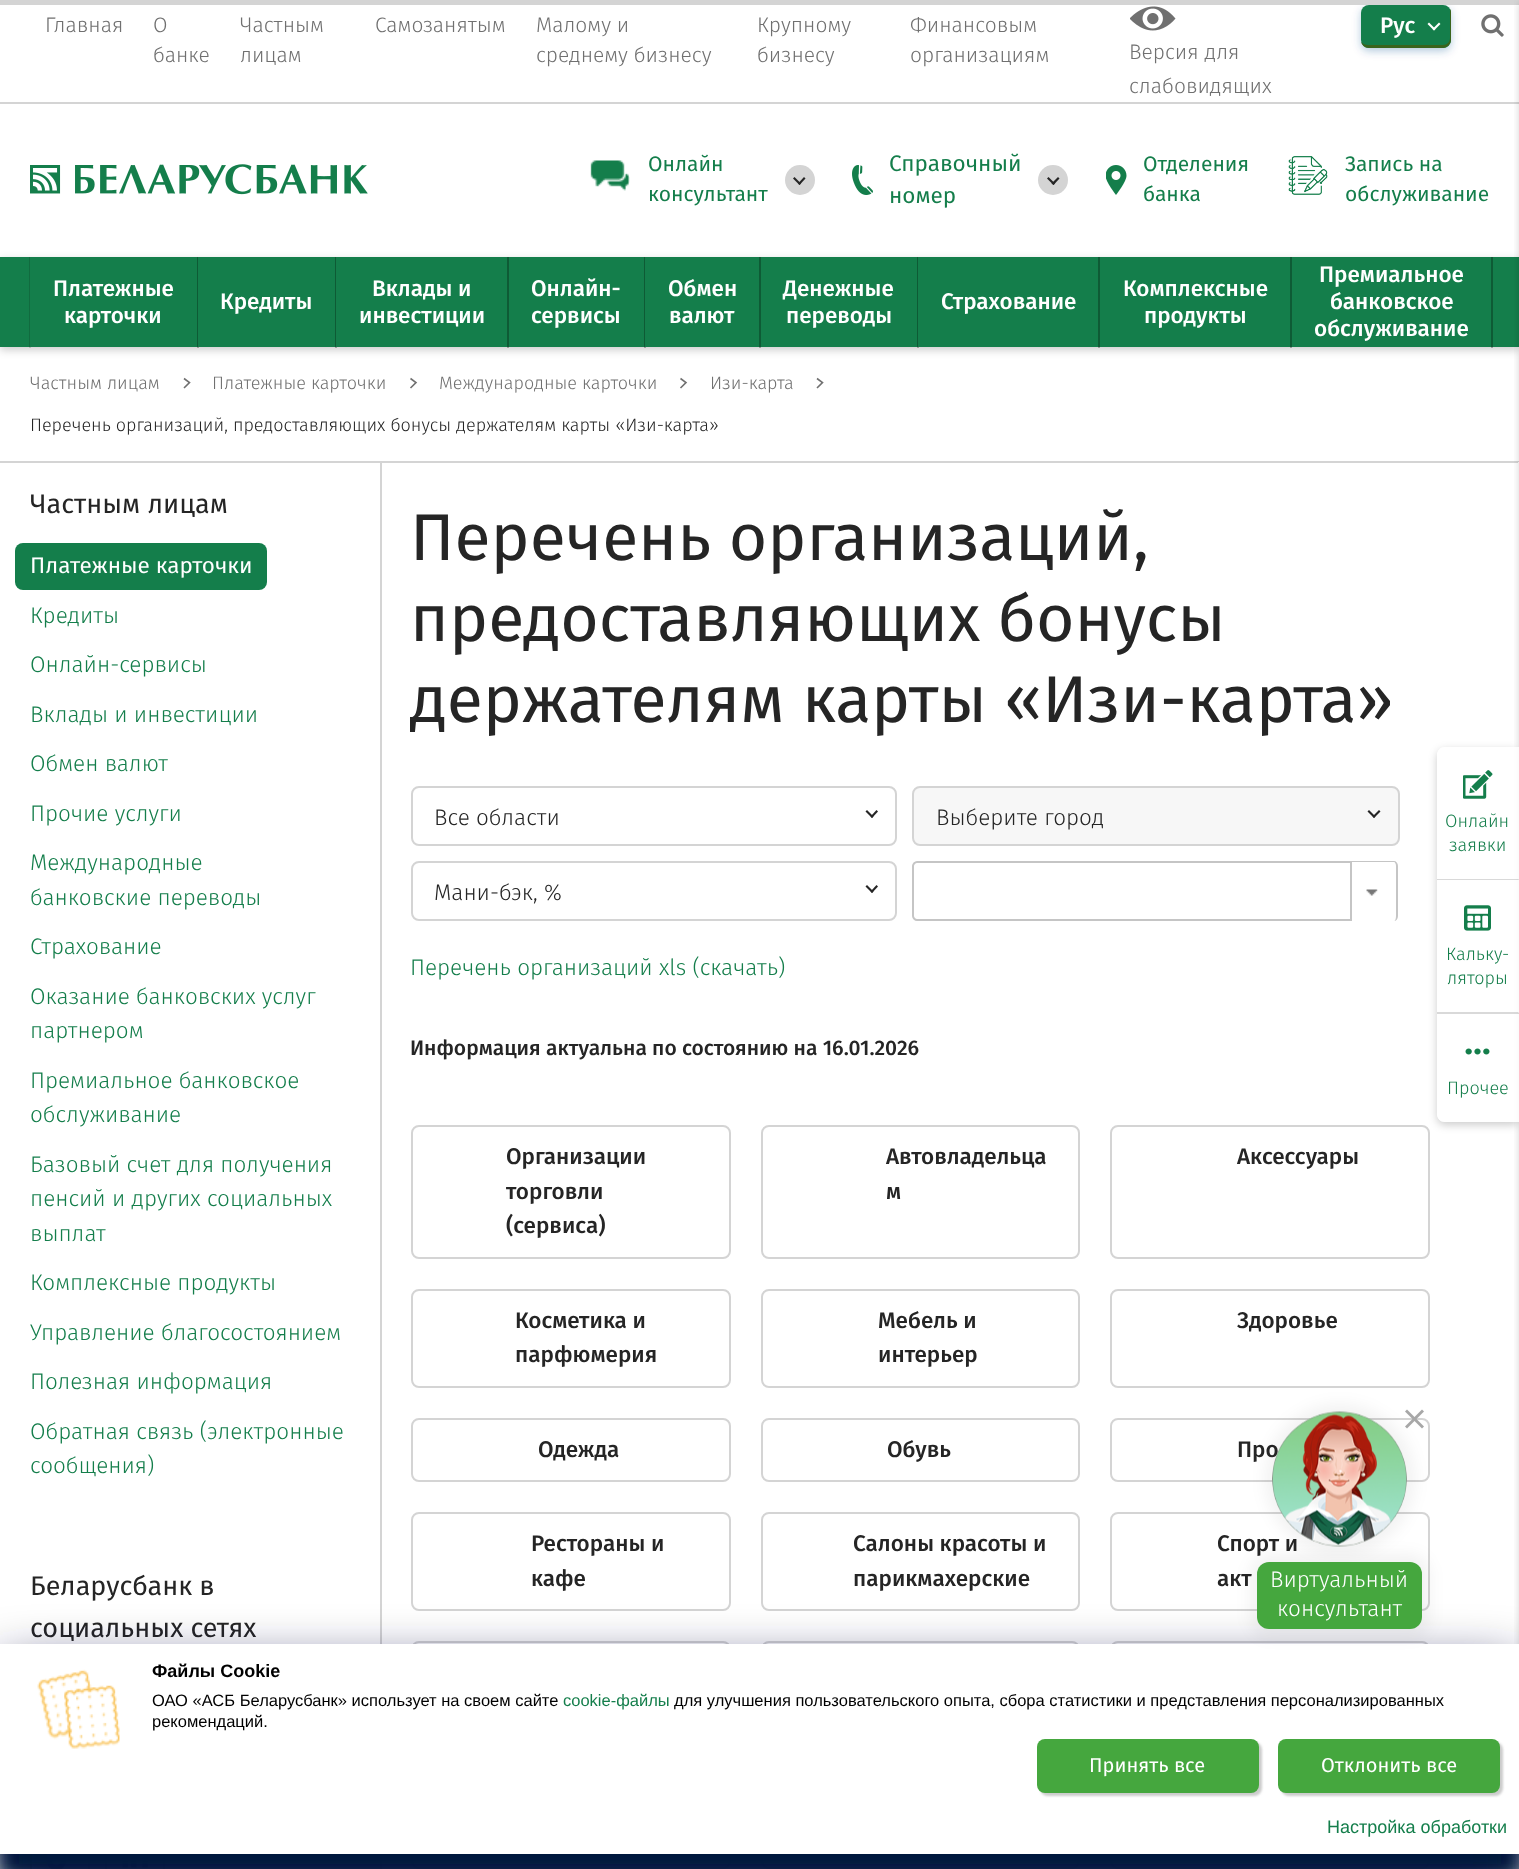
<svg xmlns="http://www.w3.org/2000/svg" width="1519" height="1869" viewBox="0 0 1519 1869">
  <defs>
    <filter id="blur1" x="-50%" y="-200%" width="200%" height="500%"><feGaussianBlur stdDeviation="4"/></filter>
    <clipPath id="clip1"><path d="M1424 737H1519V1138H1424ZM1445 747H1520V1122H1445C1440.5 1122 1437 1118.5 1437 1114V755C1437 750.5 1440.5 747 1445 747Z" clip-rule="evenodd"/></clipPath>
    <filter id="blur2" x="-50%" y="-200%" width="200%" height="500%"><feGaussianBlur stdDeviation="7.5"/></filter>
    <filter id="blur3" x="-50%" y="-200%" width="200%" height="500%"><feGaussianBlur stdDeviation="9"/></filter>
    <filter id="blur4" x="-50%" y="-200%" width="200%" height="500%"><feGaussianBlur stdDeviation="28.5"/></filter>
    <filter id="blur5" x="-50%" y="-200%" width="200%" height="500%"><feGaussianBlur stdDeviation="1"/></filter>
  </defs>
  <rect width="100%" height="100%" fill="#ffffff"/>
  <rect x="1361" y="8" width="90" height="43" rx="8" fill="#004c8d" fill-opacity="0.3" filter="url(#blur1)"/>
  <rect x="0" y="0" width="1519" height="5" fill="#d4d4d4"/>
  <rect x="0" y="102" width="1519" height="2" fill="#d4d4d4"/>
  <text x="45" y="32" font-family="Fira Sans" font-size="21" font-weight="300" fill="#707070">Главная</text>
  <text x="153" y="32" font-family="Fira Sans" font-size="21" font-weight="300" fill="#707070">О</text>
  <text x="153" y="62" font-family="Fira Sans" font-size="21" font-weight="300" fill="#707070">банке</text>
  <text x="240" y="32" font-family="Fira Sans" font-size="21" font-weight="300" fill="#707070">Частным</text>
  <text x="240" y="62" font-family="Fira Sans" font-size="21" font-weight="300" fill="#707070">лицам</text>
  <text x="375" y="32" font-family="Fira Sans" font-size="21" font-weight="300" fill="#707070">Самозанятым</text>
  <text x="536" y="32" font-family="Fira Sans" font-size="21" font-weight="300" fill="#707070">Малому и</text>
  <text x="536" y="62" font-family="Fira Sans" font-size="21" font-weight="300" fill="#707070">среднему бизнесу</text>
  <text x="757" y="32" font-family="Fira Sans" font-size="21" font-weight="300" fill="#707070">Крупному</text>
  <text x="757" y="62" font-family="Fira Sans" font-size="21" font-weight="300" fill="#707070">бизнесу</text>
  <text x="910" y="32" font-family="Fira Sans" font-size="21" font-weight="300" fill="#707070">Финансовым</text>
  <text x="910" y="62" font-family="Fira Sans" font-size="21" font-weight="300" fill="#707070">организациям</text>
  <rect x="1361" y="5" width="90" height="43" rx="8" fill="#147e4b"/>
  <path d="M1361 42C1362 45 1365 48 1369 48H1443C1447 48 1451 44 1451 40V13C1451 12 1451 10 1450 9V38C1450 42 1447 45 1443 45H1368C1365 45 1363 44 1361 42Z" fill="#3a641d"/>
  <text x="1380" y="33" font-family="Fira Sans" font-size="22.5" font-weight="500" fill="#ffffff">Рус</text>
  <path d="M1432.5 29L1439 22.5L1440.5 24L1434 30.5Z" fill="#ffffff"/>
  <path d="M1427.5 24L1429 22.5L1435.5 29L1434 30.5Z" fill="#ffffff"/>
  <image x="1481" y="14" width="23" height="23" href="img1.png"/>
  <image x="1130" y="6" width="46" height="25" href="img2.png"/>
  <text x="1129" y="59" font-family="Fira Sans" font-size="21" font-weight="300" fill="#707070">Версия для</text>
  <text x="1129" y="93" font-family="Fira Sans" font-size="21" font-weight="300" fill="#707070">слабовидящих</text>
  <image x="30" y="164" width="338" height="31" href="img3.png"/>
  <image x="590" y="160" width="40" height="31" href="img4.png"/>
  <text x="648" y="171" font-family="Fira Sans" font-size="21" fill="#147e4b">Онлайн</text>
  <text x="648" y="201" font-family="Fira Sans" font-size="21" fill="#147e4b">консультант</text>
  <circle cx="800" cy="180" r="15" fill="#d4d4d4"/>
  <path d="M798 183.5L804 177L805.5 178.5L799.5 185Z" fill="#252525"/>
  <path d="M793 178.5L794.5 177L801 183.5L799.5 185Z" fill="#252525"/>
  <image x="852" y="165" width="21" height="30" href="img5.png"/>
  <text x="889" y="171" font-family="Fira Sans" font-size="22.5" fill="#147e4b">Справочный</text>
  <text x="889" y="203" font-family="Fira Sans" font-size="22.5" fill="#147e4b">номер</text>
  <circle cx="1053" cy="180" r="15" fill="#d4d4d4"/>
  <path d="M1051.5 183.5L1058 177L1059.5 178.5L1053.5 185Z" fill="#252525"/>
  <path d="M1047 178.5L1048.5 177L1055 183.5L1053.5 185Z" fill="#252525"/>
  <image x="1106" y="165" width="21" height="30" href="img6.png"/>
  <text x="1143" y="171" font-family="Fira Sans" font-size="21" fill="#147e4b">Отделения</text>
  <text x="1143" y="201" font-family="Fira Sans" font-size="21" fill="#147e4b">банка</text>
  <image x="1288" y="156" width="40" height="39" href="img7.png"/>
  <text x="1345" y="171" font-family="Fira Sans" font-size="21" fill="#147e4b">Запись на</text>
  <text x="1345" y="201" font-family="Fira Sans" font-size="21" fill="#147e4b">обслуживание</text>
  <rect x="0" y="260" width="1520" height="90" fill="#000000" fill-opacity="0.2" filter="url(#blur1)"/>
  <rect x="0" y="257" width="1519" height="90" fill="#147e4b"/>
  <rect x="197" y="257" width="2" height="91" fill="#000000" fill-opacity="0.15"/>
  <rect x="197" y="257" width="2" height="91" fill="#000000" fill-opacity="0.15"/>
  <rect x="29" y="257" width="2" height="91" fill="#000000" fill-opacity="0.15"/>
  <rect x="30" y="257" width="1" height="90" fill="#147e4b"/>
  <text x="53" y="296" font-family="Fira Sans" font-size="22.5" font-weight="500" fill="#ffffff">Платежные</text>
  <text x="64" y="323" font-family="Fira Sans" font-size="22.5" font-weight="500" fill="#ffffff">карточки</text>
  <rect x="335" y="257" width="2" height="91" fill="#000000" fill-opacity="0.15"/>
  <rect x="335" y="257" width="2" height="91" fill="#000000" fill-opacity="0.15"/>
  <rect x="198" y="257" width="1" height="90" fill="#147e4b"/>
  <text x="220" y="309" font-family="Fira Sans" font-size="22.5" font-weight="500" fill="#ffffff">Кредиты</text>
  <rect x="507" y="257" width="2" height="91" fill="#000000" fill-opacity="0.15"/>
  <rect x="507" y="257" width="2" height="91" fill="#000000" fill-opacity="0.15"/>
  <rect x="336" y="257" width="1" height="90" fill="#147e4b"/>
  <text x="372" y="296" font-family="Fira Sans" font-size="22.5" font-weight="500" fill="#ffffff">Вклады и</text>
  <text x="359" y="323" font-family="Fira Sans" font-size="22.5" font-weight="500" fill="#ffffff">инвестиции</text>
  <rect x="644" y="257" width="2" height="91" fill="#000000" fill-opacity="0.15"/>
  <rect x="644" y="257" width="2" height="91" fill="#000000" fill-opacity="0.15"/>
  <text x="531" y="296" font-family="Fira Sans" font-size="22.5" font-weight="500" fill="#ffffff">Онлайн-</text>
  <text x="531" y="323" font-family="Fira Sans" font-size="22.5" font-weight="500" fill="#ffffff">сервисы</text>
  <rect x="759" y="257" width="2" height="91" fill="#000000" fill-opacity="0.15"/>
  <rect x="759" y="257" width="2" height="91" fill="#000000" fill-opacity="0.15"/>
  <rect x="645" y="257" width="1" height="90" fill="#147e4b"/>
  <text x="668" y="296" font-family="Fira Sans" font-size="22.5" font-weight="500" fill="#ffffff">Обмен</text>
  <text x="669" y="323" font-family="Fira Sans" font-size="22.5" font-weight="500" fill="#ffffff">валют</text>
  <rect x="917" y="257" width="2" height="91" fill="#000000" fill-opacity="0.15"/>
  <rect x="917" y="257" width="2" height="91" fill="#000000" fill-opacity="0.15"/>
  <text x="783" y="296" font-family="Fira Sans" font-size="22.5" font-weight="500" fill="#ffffff">Денежные</text>
  <text x="786" y="323" font-family="Fira Sans" font-size="22.5" font-weight="500" fill="#ffffff">переводы</text>
  <rect x="1098" y="257" width="2" height="91" fill="#000000" fill-opacity="0.15"/>
  <rect x="1098" y="257" width="2" height="91" fill="#000000" fill-opacity="0.15"/>
  <rect x="918" y="257" width="1" height="90" fill="#147e4b"/>
  <text x="941" y="309" font-family="Fira Sans" font-size="22.5" font-weight="500" fill="#ffffff">Страхование</text>
  <rect x="1290" y="257" width="2" height="91" fill="#000000" fill-opacity="0.15"/>
  <rect x="1290" y="257" width="2" height="91" fill="#000000" fill-opacity="0.15"/>
  <text x="1123" y="296" font-family="Fira Sans" font-size="22.5" font-weight="500" fill="#ffffff">Комплексные</text>
  <text x="1144" y="323" font-family="Fira Sans" font-size="22.5" font-weight="500" fill="#ffffff">продукты</text>
  <rect x="1491" y="257" width="2" height="91" fill="#000000" fill-opacity="0.15"/>
  <rect x="1491" y="257" width="2" height="91" fill="#000000" fill-opacity="0.15"/>
  <text x="1319" y="282" font-family="Fira Sans" font-size="22.5" font-weight="500" fill="#ffffff">Премиальное</text>
  <text x="1330" y="309" font-family="Fira Sans" font-size="22.5" font-weight="500" fill="#ffffff">банковское</text>
  <text x="1314" y="336" font-family="Fira Sans" font-size="22.5" font-weight="500" fill="#ffffff">обслуживание</text>
  <rect x="0" y="461" width="1519" height="1" fill="#d4d4d4"/>
  <text x="30" y="389" font-family="Fira Sans" font-size="18" font-weight="300" fill="#707070">Частным лицам</text>
  <path d="M184 378.5L189.5 382.5L184 388" fill="none" stroke="#707070" stroke-width="1.6"/>
  <text x="212" y="389" font-family="Fira Sans" font-size="18" font-weight="300" fill="#707070">Платежные карточки</text>
  <path d="M410.5 378.5L416 382.5L410.5 388" fill="none" stroke="#707070" stroke-width="1.6"/>
  <text x="439" y="389" font-family="Fira Sans" font-size="18" font-weight="300" fill="#707070">Международные карточки</text>
  <path d="M680.5 378.5L686 382.5L680.5 388" fill="none" stroke="#707070" stroke-width="1.6"/>
  <text x="710" y="389" font-family="Fira Sans" font-size="18" font-weight="300" fill="#707070">Изи-карта</text>
  <path d="M817 378.5L822.5 382.5L817 388" fill="none" stroke="#707070" stroke-width="1.6"/>
  <text x="30" y="431" font-family="Fira Sans" font-size="18" font-weight="300" fill="#252525">Перечень организаций, предоставляющих бонусы держателям карты «Изи-карта»</text>
  <rect x="380" y="462" width="2" height="1407" fill="#d4d4d4"/>
  <rect x="0" y="462" width="1519" height="1" fill="#d4d4d4"/>
  <rect x="1518" y="462" width="1" height="1" fill="#ffffff"/>
  <text x="30" y="513" font-family="Fira Sans" font-size="27" fill="#252525">Частным лицам</text>
  <rect x="15" y="543" width="252" height="47" rx="8" fill="#147e4b"/>
  <text x="30" y="573" font-family="Fira Sans" font-size="22.5" fill="#ffffff">Платежные карточки</text>
  <text x="30" y="623" font-family="Fira Sans" font-size="22.5" font-weight="300" fill="#147e4b">Кредиты</text>
  <text x="30" y="672" font-family="Fira Sans" font-size="22.5" font-weight="300" fill="#147e4b">Онлайн-сервисы</text>
  <text x="30" y="722" font-family="Fira Sans" font-size="22.5" font-weight="300" fill="#147e4b">Вклады и инвестиции</text>
  <text x="30" y="771" font-family="Fira Sans" font-size="22.5" font-weight="300" fill="#147e4b">Обмен валют</text>
  <text x="30" y="821" font-family="Fira Sans" font-size="22.5" font-weight="300" fill="#147e4b">Прочие услуги</text>
  <text x="30" y="870" font-family="Fira Sans" font-size="22.5" font-weight="300" fill="#147e4b">Международные</text>
  <text x="30" y="905" font-family="Fira Sans" font-size="22.5" font-weight="300" fill="#147e4b">банковские переводы</text>
  <text x="30" y="954" font-family="Fira Sans" font-size="22.5" font-weight="300" fill="#147e4b">Страхование</text>
  <text x="30" y="1004" font-family="Fira Sans" font-size="22.5" font-weight="300" fill="#147e4b">Оказание банковских услуг</text>
  <text x="30" y="1038" font-family="Fira Sans" font-size="22.5" font-weight="300" fill="#147e4b">партнером</text>
  <text x="30" y="1088" font-family="Fira Sans" font-size="22.5" font-weight="300" fill="#147e4b">Премиальное банковское</text>
  <text x="30" y="1122" font-family="Fira Sans" font-size="22.5" font-weight="300" fill="#147e4b">обслуживание</text>
  <text x="30" y="1172" font-family="Fira Sans" font-size="22.5" font-weight="300" fill="#147e4b">Базовый счет для получения</text>
  <text x="30" y="1206" font-family="Fira Sans" font-size="22.5" font-weight="300" fill="#147e4b">пенсий и других социальных</text>
  <text x="30" y="1241" font-family="Fira Sans" font-size="22.5" font-weight="300" fill="#147e4b">выплат</text>
  <text x="30" y="1290" font-family="Fira Sans" font-size="22.5" font-weight="300" fill="#147e4b">Комплексные продукты</text>
  <text x="30" y="1340" font-family="Fira Sans" font-size="22.5" font-weight="300" fill="#147e4b">Управление благосостоянием</text>
  <text x="30" y="1389" font-family="Fira Sans" font-size="22.5" font-weight="300" fill="#147e4b">Полезная информация</text>
  <text x="30" y="1439" font-family="Fira Sans" font-size="22.5" font-weight="300" fill="#147e4b">Обратная связь (электронные</text>
  <text x="30" y="1473" font-family="Fira Sans" font-size="22.5" font-weight="300" fill="#147e4b">сообщения)</text>
  <text x="30" y="1595" font-family="Fira Sans" font-size="27" fill="#252525">Беларусбанк в</text>
  <text x="30" y="1637" font-family="Fira Sans" font-size="27" fill="#252525">социальных сетях</text>
  <rect x="31" y="1827" width="58" height="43" fill="none" stroke="#d4d4d4" stroke-width="2"/>
  <image x="46" y="1854" width="20" height="15" href="img8.png"/>
  <rect x="106" y="1827" width="58" height="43" fill="none" stroke="#d4d4d4" stroke-width="2"/>
  <image x="122" y="1854" width="26" height="14" href="img9.png"/>
  <text x="410" y="560" font-family="Fira Sans" font-size="66" fill="#252525">Перечень организаций,</text>
  <text x="410" y="641" font-family="Fira Sans" font-size="66" fill="#252525">предоставляющих бонусы</text>
  <text x="410" y="722" font-family="Fira Sans" font-size="66" fill="#252525">держателям карты «Изи-карта»</text>
  <rect x="412" y="787" width="484" height="58" rx="7" fill="none" stroke="#d4d4d4" stroke-width="2"/>
  <text x="434" y="825" font-family="Fira Sans" font-size="22.5" font-weight="300" fill="#252525">Все области</text>
  <path d="M870.5 816.5L876.5 810L878 811.5L872 818Z" fill="#252525"/>
  <path d="M865.5 811.5L867 810L873.5 816.5L872 818Z" fill="#252525"/>
  <rect x="913" y="787" width="486" height="58" rx="7" fill="#f7f7f7" stroke="#d4d4d4" stroke-width="2"/>
  <text x="936" y="825" font-family="Fira Sans" font-size="22.5" font-weight="300" fill="#252525">Выберите город</text>
  <path d="M1372.5 816.5L1379 810L1380.5 811.5L1374 818Z" fill="#252525"/>
  <path d="M1367.5 811.5L1369 810L1375.5 816.5L1374 818Z" fill="#252525"/>
  <rect x="412" y="862" width="484" height="58" rx="7" fill="none" stroke="#d4d4d4" stroke-width="2"/>
  <text x="434" y="900" font-family="Fira Sans" font-size="22.5" font-weight="300" fill="#252525">Мани-бэк, %</text>
  <path d="M870.5 891.5L876.5 885L878 886.5L872 893Z" fill="#252525"/>
  <path d="M865.5 886.5L867 885L873.5 891.5L872 893Z" fill="#252525"/>
  <path d="M917 862H1351V920H917C915 920 913 918 913 916V866C913 864 915 862 917 862Z" fill="none" stroke="#c5c5c5" stroke-width="2"/>
  <path d="M1348 861H1394C1396 861 1398 863 1398 866V916C1398 919 1396 921 1394 921H1348ZM1348 862H1394C1395 862 1396 864 1396 866V916C1396 919 1395 921 1394 921H1348Z" fill="#c5c5c5" fill-rule="evenodd"/>
  <image x="1366" y="889" width="12" height="7" href="img10.png"/>
  <text x="410" y="975" font-family="Fira Sans" font-size="22.5" font-weight="300" fill="#147e4b">Перечень организаций xls (скачать)</text>
  <text x="410" y="1055" font-family="Fira Sans" font-size="21" font-weight="500" fill="#252525">Информация актуальна по состоянию на 16.01.2026</text>
  <rect x="412" y="1126" width="318" height="132" rx="7" fill="none" stroke="#d4d4d4" stroke-width="2"/>
  <text x="506" y="1164" font-family="Fira Sans" font-size="22.5" font-weight="500" fill="#252525">Организации</text>
  <text x="506" y="1199" font-family="Fira Sans" font-size="22.5" font-weight="500" fill="#252525">торговли</text>
  <text x="506" y="1233" font-family="Fira Sans" font-size="22.5" font-weight="500" fill="#252525">(сервиса)</text>
  <rect x="762" y="1126" width="317" height="132" rx="7" fill="none" stroke="#d4d4d4" stroke-width="2"/>
  <text x="886" y="1164" font-family="Fira Sans" font-size="22.5" font-weight="500" fill="#252525">Автовладельца</text>
  <text x="886" y="1199" font-family="Fira Sans" font-size="22.5" font-weight="500" fill="#252525">м</text>
  <rect x="1111" y="1126" width="318" height="132" rx="7" fill="none" stroke="#d4d4d4" stroke-width="2"/>
  <text x="1237" y="1164" font-family="Fira Sans" font-size="22.5" font-weight="500" fill="#252525">Аксессуары</text>
  <rect x="412" y="1290" width="318" height="97" rx="7" fill="none" stroke="#d4d4d4" stroke-width="2"/>
  <text x="515" y="1328" font-family="Fira Sans" font-size="22.5" font-weight="500" fill="#252525">Косметика и</text>
  <text x="515" y="1362" font-family="Fira Sans" font-size="22.5" font-weight="500" fill="#252525">парфюмерия</text>
  <rect x="762" y="1290" width="317" height="97" rx="7" fill="none" stroke="#d4d4d4" stroke-width="2"/>
  <text x="878" y="1328" font-family="Fira Sans" font-size="22.5" font-weight="500" fill="#252525">Мебель и</text>
  <text x="878" y="1362" font-family="Fira Sans" font-size="22.5" font-weight="500" fill="#252525">интерьер</text>
  <rect x="1111" y="1290" width="318" height="97" rx="7" fill="none" stroke="#d4d4d4" stroke-width="2"/>
  <text x="1237" y="1328" font-family="Fira Sans" font-size="22.5" font-weight="500" fill="#252525">Здоровье</text>
  <rect x="412" y="1419" width="318" height="62" rx="7" fill="none" stroke="#d4d4d4" stroke-width="2"/>
  <text x="538" y="1457" font-family="Fira Sans" font-size="22.5" font-weight="500" fill="#252525">Одежда</text>
  <rect x="762" y="1419" width="317" height="62" rx="7" fill="none" stroke="#d4d4d4" stroke-width="2"/>
  <text x="887" y="1457" font-family="Fira Sans" font-size="22.5" font-weight="500" fill="#252525">Обувь</text>
  <rect x="1111" y="1419" width="318" height="62" rx="7" fill="none" stroke="#d4d4d4" stroke-width="2"/>
  <text x="1237" y="1457" font-family="Fira Sans" font-size="22.5" font-weight="500" fill="#252525">Про</text>
  <rect x="412" y="1513" width="318" height="97" rx="7" fill="none" stroke="#d4d4d4" stroke-width="2"/>
  <text x="531" y="1551" font-family="Fira Sans" font-size="22.5" font-weight="500" fill="#252525">Рестораны и</text>
  <text x="531" y="1586" font-family="Fira Sans" font-size="22.5" font-weight="500" fill="#252525">кафе</text>
  <rect x="762" y="1513" width="317" height="97" rx="7" fill="none" stroke="#d4d4d4" stroke-width="2"/>
  <text x="853" y="1551" font-family="Fira Sans" font-size="22.5" font-weight="500" fill="#252525">Салоны красоты и</text>
  <text x="853" y="1586" font-family="Fira Sans" font-size="22.5" font-weight="500" fill="#252525">парикмахерские</text>
  <rect x="1111" y="1513" width="318" height="97" rx="7" fill="none" stroke="#d4d4d4" stroke-width="2"/>
  <text x="1217" y="1551" font-family="Fira Sans" font-size="22.5" font-weight="500" fill="#252525">Спорт и</text>
  <text x="1217" y="1586" font-family="Fira Sans" font-size="22.5" font-weight="500" fill="#252525">акт</text>
  <rect x="412" y="1642" width="318" height="97" rx="7" fill="none" stroke="#d4d4d4" stroke-width="2"/>
  <rect x="762" y="1642" width="317" height="97" rx="7" fill="none" stroke="#d4d4d4" stroke-width="2"/>
  <rect x="1111" y="1642" width="318" height="97" rx="7" fill="none" stroke="#d4d4d4" stroke-width="2"/>
  <rect x="412" y="1771" width="318" height="97" rx="7" fill="none" stroke="#d4d4d4" stroke-width="2"/>
  <rect x="762" y="1771" width="317" height="97" rx="7" fill="none" stroke="#d4d4d4" stroke-width="2"/>
  <rect x="1111" y="1771" width="318" height="97" rx="7" fill="none" stroke="#d4d4d4" stroke-width="2"/>
  <rect x="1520" y="3" width="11" height="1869" fill="#000000" fill-opacity="0.2" filter="url(#blur1)"/>
  <g clip-path="url(#clip1)">
    <rect x="1437" y="750" width="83" height="375" rx="8" fill="#000000" fill-opacity="0.2" filter="url(#blur1)"/>
  </g>
  <path d="M1445 747H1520V1122H1445C1440.5 1122 1437 1118.5 1437 1114V755C1437 750.5 1440.5 747 1445 747Z" fill="#ffffff" fill-opacity="0.8"/>
  <path d="M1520 880H1437V879H1518Z" fill="#000000" fill-opacity="0.15"/>
  <image x="1463" y="770" width="30" height="29" href="img11.png"/>
  <text x="1445" y="827" font-family="Fira Sans" font-size="18" font-weight="300" fill="#147e4b">Онлайн</text>
  <text x="1449" y="851" font-family="Fira Sans" font-size="18" font-weight="300" fill="#147e4b">заявки</text>
  <path d="M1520 1014H1437V1012H1518Z" fill="#000000" fill-opacity="0.15"/>
  <image x="1464" y="905" width="27" height="26" href="img12.png"/>
  <text x="1446" y="960" font-family="Fira Sans" font-size="18" font-weight="300" fill="#147e4b">Кальку-</text>
  <text x="1447" y="984" font-family="Fira Sans" font-size="18" font-weight="300" fill="#147e4b">ляторы</text>
  <image x="1465" y="1048" width="25" height="7" href="img13.png"/>
  <text x="1447" y="1094" font-family="Fira Sans" font-size="18" font-weight="300" fill="#147e4b">Прочее</text>
  <rect x="1265" y="1404" width="150" height="150" rx="75" fill="#000000" fill-opacity="0.05" filter="url(#blur2)"/>
  <rect x="0" y="1667" width="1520" height="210" fill="#00143c" filter="url(#blur3)"/>
  <rect x="0" y="1673" width="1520" height="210" fill="#00143c" filter="url(#blur4)"/>
  <rect x="0" y="1644" width="1519" height="210" fill="#ffffff"/>
  <rect x="1250" y="1554" width="180" height="83" rx="20" fill="#000000" fill-opacity="0.05" filter="url(#blur2)"/>
  <image x="1272" y="1411" width="135" height="136" href="img14.png"/>
  <path d="M1407 1409.5L1424 1426.5L1422 1428.5L1405 1411.5Z" fill="#a7a7a7"/>
  <path d="M1405 1426.5L1422 1409.5L1424 1411.5L1407 1428.5Z" fill="#a7a7a7"/>
  <rect x="1257" y="1562" width="165" height="67" rx="12" fill="#45a73e"/>
  <text x="1270" y="1587" font-family="Fira Sans" font-size="22.5" font-weight="300" fill="#ffffff">Виртуальный</text>
  <text x="1277" y="1616" font-family="Fira Sans" font-size="22.5" font-weight="300" fill="#ffffff">консультант</text>
  <image x="37" y="1669" width="83" height="80" href="img15.png"/>
  <text x="152" y="1677" font-family="Liberation Sans" font-size="18" font-weight="bold" fill="#000000">Файлы Cookie</text>
  <text x="152" y="1706" font-family="Liberation Sans" font-size="16.5" fill="#000000">ОАО «АСБ Беларусбанк» использует на своем сайте</text>
  <text x="563" y="1706" font-family="Liberation Sans" font-size="16.5" fill="#147e4b">cookie-файлы</text>
  <text x="674" y="1706" font-family="Liberation Sans" font-size="16.5" fill="#000000">для улучшения пользовательского опыта, сбора статистики и представления персонализированных</text>
  <text x="152" y="1727" font-family="Liberation Sans" font-size="16.5" fill="#000000">рекомендаций.</text>
  <rect x="1040" y="1742" width="222" height="54" rx="8" fill="#cccccc" filter="url(#blur5)"/>
  <rect x="1037" y="1739" width="222" height="54" rx="8" fill="#45a73e"/>
  <text x="1089" y="1772" font-family="Fira Sans" font-size="20" fill="#ffffff">Принять все</text>
  <rect x="1281" y="1742" width="222" height="54" rx="8" fill="#cccccc" filter="url(#blur5)"/>
  <rect x="1278" y="1739" width="222" height="54" rx="8" fill="#45a73e"/>
  <text x="1321" y="1772" font-family="Fira Sans" font-size="20" fill="#ffffff">Отклонить все</text>
  <text x="1327" y="1833" font-family="Liberation Sans" font-size="18" fill="#147e4b">Настройка обработки</text>
</svg>
